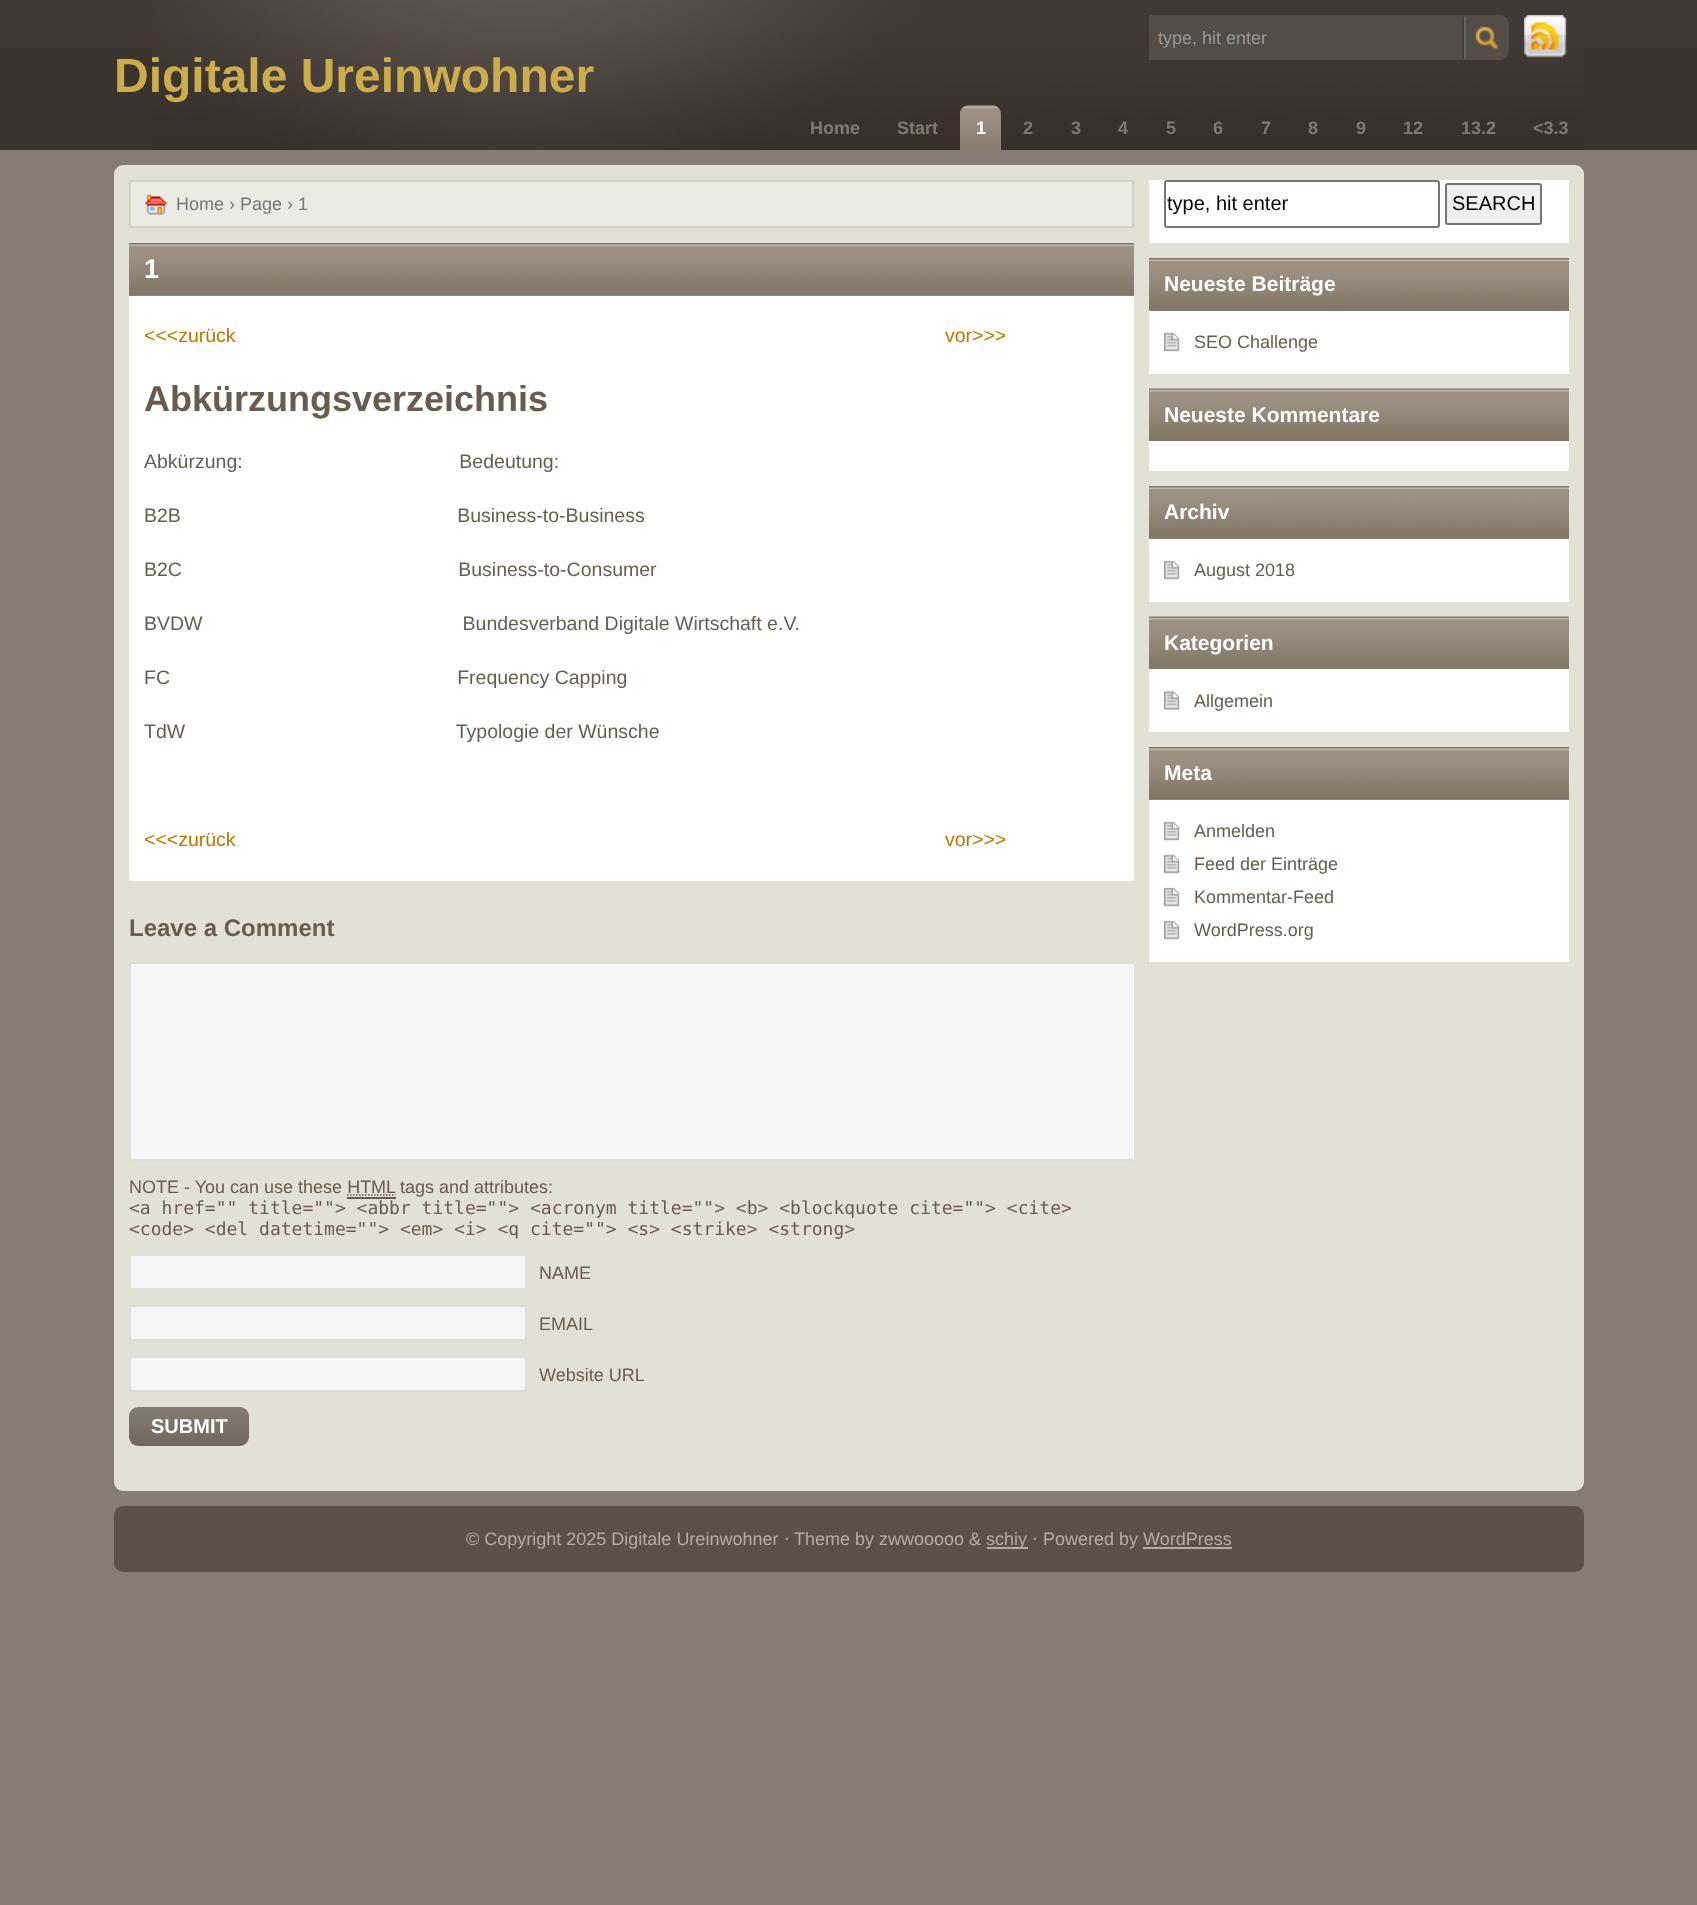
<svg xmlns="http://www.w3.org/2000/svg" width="1697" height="1905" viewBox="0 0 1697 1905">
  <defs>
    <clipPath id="clip1"><rect x="129" y="180" width="1005" height="1296"/></clipPath>
  </defs>
  <rect width="100%" height="100%" fill="#867c72"/>
  <rect x="0" y="48" width="1697" height="102" fill="#3b342e"/>
  <rect x="0" y="0" width="1697" height="48" fill="#413a34"/>
  <image x="152" y="0" width="1432" height="150" href="img1.png"/>
  <rect x="1149" y="15" width="360" height="45" fill="#544c46"/>
  <text x="1158" y="44" font-family="Liberation Sans" font-size="18" fill="#999999">type, hit enter</text>
  <image x="1462" y="15" width="47" height="45" href="img2.png"/>
  <image x="1524" y="15" width="43" height="43" href="img3.png"/>
  <text x="114" y="92" font-family="Liberation Sans" font-size="48" font-weight="bold" fill="#cdac4d">Digitale Ureinwohner</text>
  <text x="810" y="134" font-family="Liberation Sans" font-size="18" font-weight="bold" fill="#81786f">Home</text>
  <text x="897" y="134" font-family="Liberation Sans" font-size="18" font-weight="bold" fill="#81786f">Start</text>
  <path d="M969 105H992C997 105 1001 109 1001 114V150H960V114C960 109 964 105 969 105Z" fill="#958b81"/>
  <image x="960" y="105" width="41" height="45" href="img4.png"/>
  <text x="976" y="134" font-family="Liberation Sans" font-size="18" font-weight="bold" fill="#ffffff">1</text>
  <text x="1023" y="134" font-family="Liberation Sans" font-size="18" font-weight="bold" fill="#81786f">2</text>
  <text x="1071" y="134" font-family="Liberation Sans" font-size="18" font-weight="bold" fill="#81786f">3</text>
  <text x="1118" y="134" font-family="Liberation Sans" font-size="18" font-weight="bold" fill="#81786f">4</text>
  <text x="1166" y="134" font-family="Liberation Sans" font-size="18" font-weight="bold" fill="#81786f">5</text>
  <text x="1213" y="134" font-family="Liberation Sans" font-size="18" font-weight="bold" fill="#81786f">6</text>
  <text x="1261" y="134" font-family="Liberation Sans" font-size="18" font-weight="bold" fill="#81786f">7</text>
  <text x="1308" y="134" font-family="Liberation Sans" font-size="18" font-weight="bold" fill="#81786f">8</text>
  <text x="1356" y="134" font-family="Liberation Sans" font-size="18" font-weight="bold" fill="#81786f">9</text>
  <text x="1403" y="134" font-family="Liberation Sans" font-size="18" font-weight="bold" fill="#81786f">12</text>
  <text x="1461" y="134" font-family="Liberation Sans" font-size="18" font-weight="bold" fill="#81786f">13.2</text>
  <text x="1533" y="134" font-family="Liberation Sans" font-size="18" font-weight="bold" fill="#81786f">&lt;3.3</text>
  <rect x="114" y="165" width="1470" height="1326" rx="9" fill="#e3e1d5"/>
  <rect x="131" y="182" width="1001" height="44" fill="#ecebe3"/>
  <image x="145" y="194" width="22" height="21" href="img5.png"/>
  <rect x="130" y="181" width="1003" height="46" fill="none" stroke="#d5d3c7" stroke-width="2"/>
  <text x="176" y="210" font-family="Liberation Sans" font-size="18" fill="#777777">Home › Page › 1</text>
  <rect x="129" y="296" width="1005" height="585" fill="#ffffff"/>
  <rect x="129" y="295" width="1005" height="1" fill="#908476"/>
  <image x="129" y="243" width="1005" height="53" href="img6.png"/>
  <text x="144" y="278" font-family="Liberation Sans" font-size="27" font-weight="bold" fill="#ffffff">1</text>
  <text x="144" y="342" font-family="Liberation Sans" font-size="19.5" fill="#ba7500">&lt;&lt;&lt;zurück</text>
  <text x="945" y="342" font-family="Liberation Sans" font-size="19.5" fill="#ba7500">vor&gt;&gt;&gt;</text>
  <text x="144" y="411" font-family="Liberation Sans" font-size="36" font-weight="bold" fill="#695c4f">Abkürzungsverzeichnis</text>
  <text x="144" y="468" font-family="Liberation Sans" font-size="19.5" fill="#695c4f" xml:space="preserve">Abkürzung:                                        Bedeutung:</text>
  <text x="144" y="522" font-family="Liberation Sans" font-size="19.5" fill="#695c4f" xml:space="preserve">B2B                                                   Business-to-Business</text>
  <text x="144" y="576" font-family="Liberation Sans" font-size="19.5" fill="#695c4f" xml:space="preserve">B2C                                                   Business-to-Consumer</text>
  <text x="144" y="630" font-family="Liberation Sans" font-size="19.5" fill="#695c4f" xml:space="preserve">BVDW                                                Bundesverband Digitale Wirtschaft e.V.</text>
  <text x="144" y="684" font-family="Liberation Sans" font-size="19.5" fill="#695c4f" xml:space="preserve">FC                                                     Frequency Capping</text>
  <text x="144" y="738" font-family="Liberation Sans" font-size="19.5" fill="#695c4f" xml:space="preserve">TdW                                                  Typologie der Wünsche</text>
  <text x="144" y="846" font-family="Liberation Sans" font-size="19.5" fill="#ba7500">&lt;&lt;&lt;zurück</text>
  <text x="945" y="846" font-family="Liberation Sans" font-size="19.5" fill="#ba7500">vor&gt;&gt;&gt;</text>
  <text x="129" y="936" font-family="Liberation Sans" font-size="24" font-weight="bold" fill="#695c4f">Leave a Comment</text>
  <rect x="131" y="964" width="1003" height="195" fill="#f6f6f6"/>
  <g clip-path="url(#clip1)">
    <rect x="130" y="963" width="1005" height="197" fill="none" stroke="#dddddd" stroke-width="2"/>
  </g>
  <text x="129" y="1193" font-family="Liberation Sans" font-size="18" fill="#695c4f">NOTE - You can use these HTML</text>
  <text x="400" y="1193" font-family="Liberation Sans" font-size="18" fill="#695c4f">tags and attributes:</text>
  <path d="M347 1195H395.5" fill="none" stroke="#695c4f" stroke-width="1.5" stroke-dasharray="1.5 1.5"/>
  <rect x="347" y="1197" width="49" height="2" fill="#695c4f"/>
  <text x="129" y="1214" font-family="DejaVu Sans Mono" font-size="18" fill="#695c4f">&lt;a href="" title=""&gt; &lt;abbr title=""&gt; &lt;acronym title=""&gt; &lt;b&gt; &lt;blockquote cite=""&gt; &lt;cite&gt;</text>
  <text x="129" y="1235" font-family="DejaVu Sans Mono" font-size="18" fill="#695c4f">&lt;code&gt; &lt;del datetime=""&gt; &lt;em&gt; &lt;i&gt; &lt;q cite=""&gt; &lt;s&gt; &lt;strike&gt; &lt;strong&gt;</text>
  <rect x="130" y="1255" width="396" height="34" fill="#f6f6f6" stroke="#dddddd" stroke-width="2"/>
  <text x="539" y="1279" font-family="Liberation Sans" font-size="18" fill="#695c4f">NAME</text>
  <rect x="130" y="1306" width="396" height="34" fill="#f6f6f6" stroke="#dddddd" stroke-width="2"/>
  <text x="539" y="1330" font-family="Liberation Sans" font-size="18" fill="#695c4f">EMAIL</text>
  <rect x="130" y="1357" width="396" height="34" fill="#f6f6f6" stroke="#dddddd" stroke-width="2"/>
  <text x="539" y="1381" font-family="Liberation Sans" font-size="18" fill="#695c4f">Website URL</text>
  <rect x="129" y="1407" width="120" height="39" rx="9" fill="#eeeeee"/>
  <image x="129" y="1407" width="120" height="39" href="img7.png"/>
  <text x="151" y="1433" font-family="Liberation Sans" font-size="20" font-weight="bold" fill="#ffffff">SUBMIT</text>
  <rect x="1149" y="180" width="420" height="63" fill="#ffffff"/>
  <rect x="1165" y="181" width="274" height="46" rx="2" fill="none" stroke="#767676" stroke-width="2"/>
  <text x="1167" y="210" font-family="Liberation Sans" font-size="20" fill="#000000">type, hit enter</text>
  <rect x="1446" y="184" width="95" height="40" rx="2" fill="#efefef" stroke="#767676" stroke-width="2"/>
  <text x="1452" y="210" font-family="Liberation Sans" font-size="20" fill="#000000">SEARCH</text>
  <rect x="1149" y="311" width="420" height="63" fill="#ffffff"/>
  <rect x="1149" y="310" width="420" height="1" fill="#938779"/>
  <image x="1149" y="258" width="420" height="53" href="img8.png"/>
  <text x="1164" y="291" font-family="Liberation Sans" font-size="21" font-weight="bold" fill="#ffffff">Neueste Beiträge</text>
  <image x="1164" y="332" width="16" height="20" href="img9.png"/>
  <text x="1194" y="348" font-family="Liberation Sans" font-size="18" fill="#695c4f">SEO Challenge</text>
  <rect x="1149" y="441" width="420" height="30" fill="#ffffff"/>
  <image x="1149" y="388" width="420" height="53" href="img10.png"/>
  <text x="1164" y="422" font-family="Liberation Sans" font-size="21" font-weight="bold" fill="#ffffff">Neueste Kommentare</text>
  <rect x="1149" y="539" width="420" height="63" fill="#ffffff"/>
  <rect x="1149" y="538" width="420" height="1" fill="#938779"/>
  <image x="1149" y="486" width="420" height="53" href="img11.png"/>
  <text x="1164" y="519" font-family="Liberation Sans" font-size="21" font-weight="bold" fill="#ffffff">Archiv</text>
  <image x="1164" y="560" width="16" height="20" href="img9.png"/>
  <text x="1194" y="576" font-family="Liberation Sans" font-size="18" fill="#695c4f">August 2018</text>
  <rect x="1149" y="669" width="420" height="63" fill="#ffffff"/>
  <image x="1149" y="616" width="420" height="53" href="img12.png"/>
  <text x="1164" y="650" font-family="Liberation Sans" font-size="21" font-weight="bold" fill="#ffffff">Kategorien</text>
  <image x="1164" y="691" width="16" height="19" href="img13.png"/>
  <text x="1194" y="707" font-family="Liberation Sans" font-size="18" fill="#695c4f">Allgemein</text>
  <rect x="1149" y="800" width="420" height="162" fill="#ffffff"/>
  <rect x="1149" y="799" width="420" height="1" fill="#938779"/>
  <image x="1149" y="747" width="420" height="53" href="img14.png"/>
  <text x="1164" y="780" font-family="Liberation Sans" font-size="21" font-weight="bold" fill="#ffffff">Meta</text>
  <image x="1164" y="821" width="16" height="20" href="img9.png"/>
  <text x="1194" y="837" font-family="Liberation Sans" font-size="18" fill="#695c4f">Anmelden</text>
  <image x="1164" y="854" width="16" height="20" href="img9.png"/>
  <text x="1194" y="870" font-family="Liberation Sans" font-size="18" fill="#695c4f">Feed der Einträge</text>
  <image x="1164" y="887" width="16" height="20" href="img9.png"/>
  <text x="1194" y="903" font-family="Liberation Sans" font-size="18" fill="#695c4f">Kommentar-Feed</text>
  <image x="1164" y="920" width="16" height="20" href="img9.png"/>
  <text x="1194" y="936" font-family="Liberation Sans" font-size="18" fill="#695c4f">WordPress.org</text>
  <rect x="114" y="1506" width="1470" height="66" rx="9" fill="#5c5148"/>
  <text x="466" y="1545" font-family="Liberation Sans" font-size="18" fill="#b6ab9f">© Copyright 2025 Digitale Ureinwohner</text>
  <text x="784" y="1545" font-family="DejaVu Sans" font-size="18" fill="#b6ab9f">⋅</text>
  <text x="794" y="1545" font-family="Liberation Sans" font-size="18" fill="#b6ab9f">Theme by zwwooooo &amp;</text>
  <rect x="987" y="1547" width="41" height="2" fill="#b6ab9f"/>
  <text x="986" y="1545" font-family="Liberation Sans" font-size="18" fill="#b6ab9f">schiy</text>
  <text x="1032" y="1545" font-family="DejaVu Sans" font-size="18" fill="#b6ab9f">⋅</text>
  <text x="1043" y="1545" font-family="Liberation Sans" font-size="18" fill="#b6ab9f">Powered by WordPress</text>
  <rect x="1143" y="1547" width="89" height="2" fill="#b6ab9f"/>
</svg>
